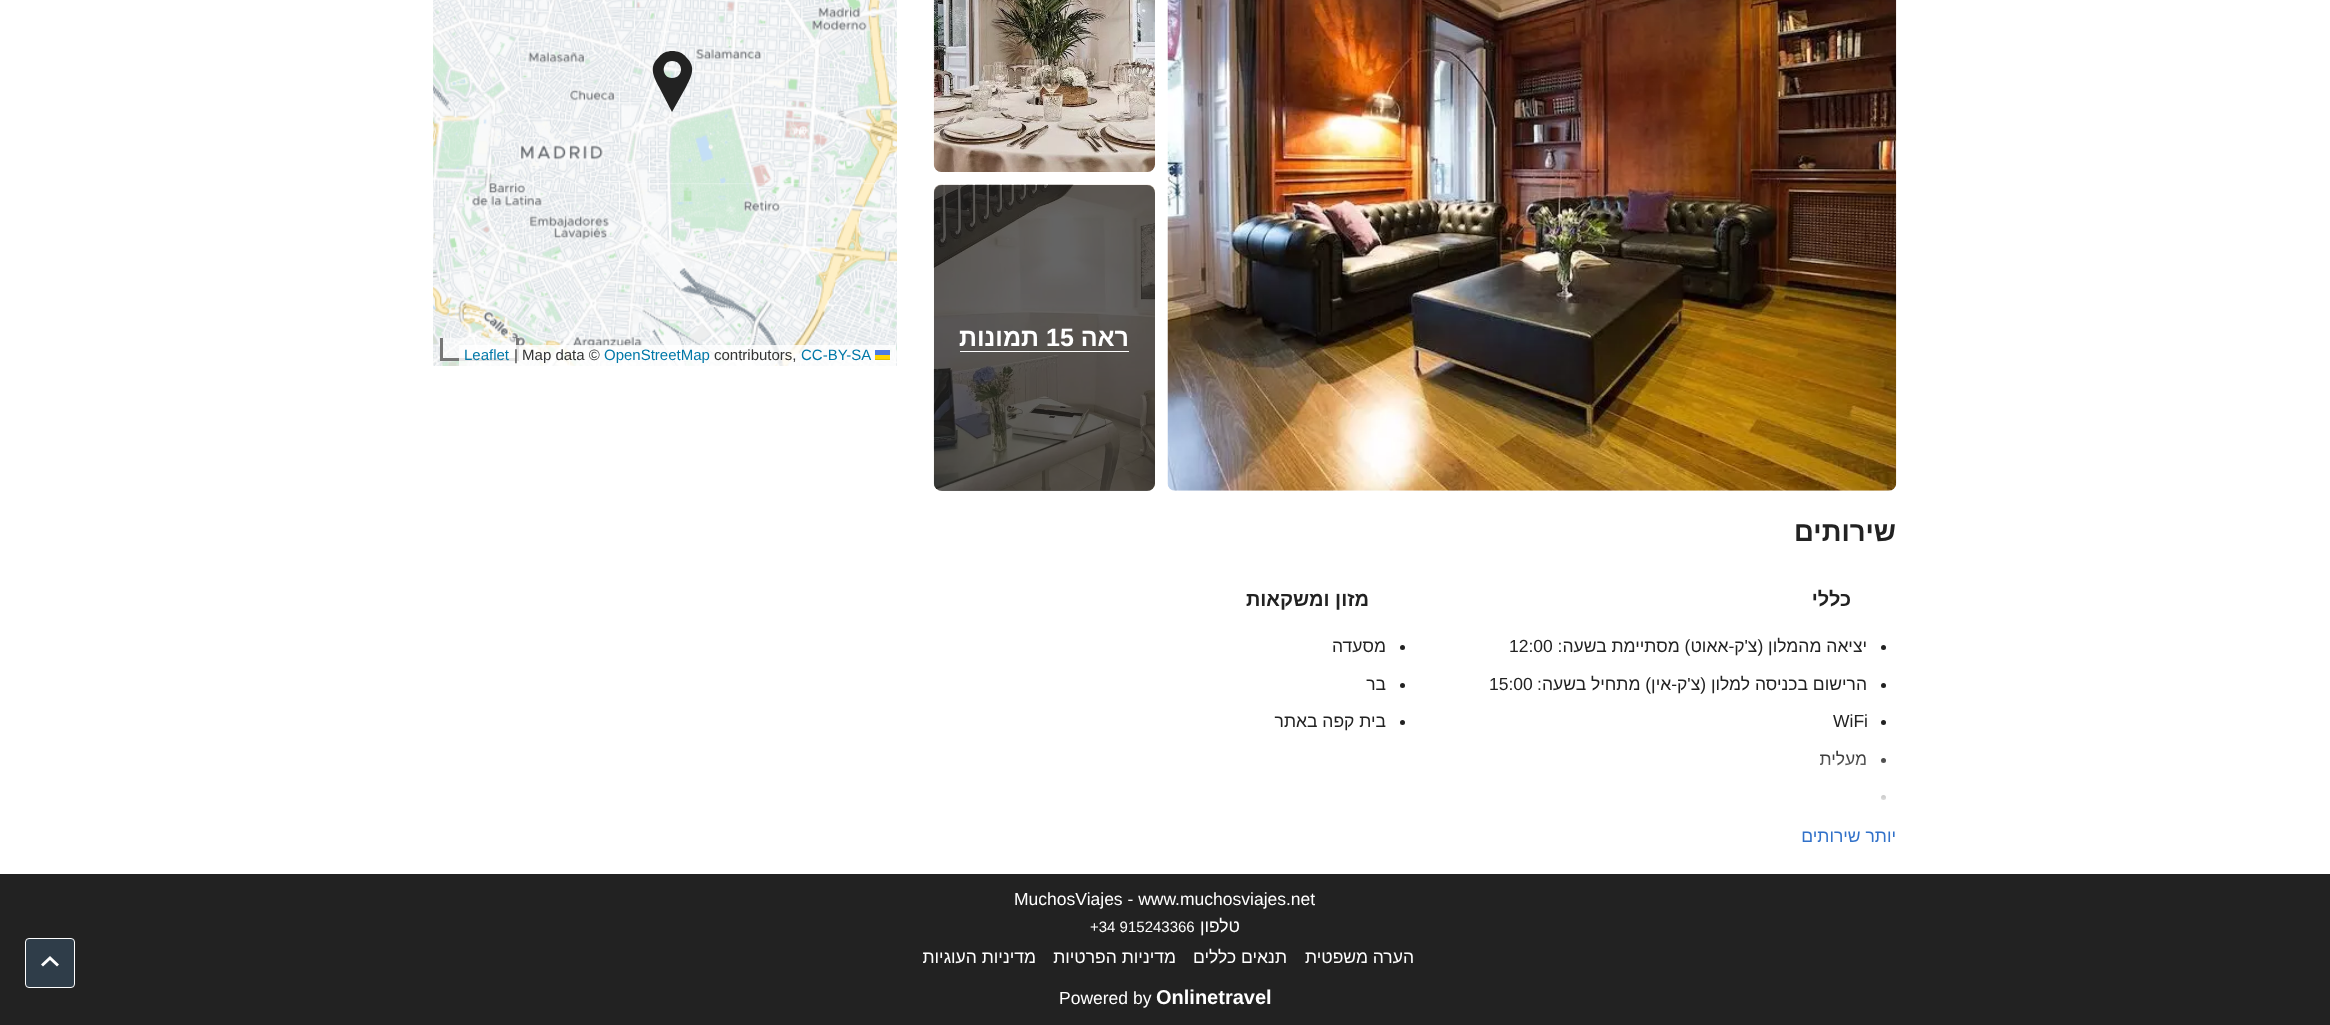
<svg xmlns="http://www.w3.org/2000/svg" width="2330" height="1025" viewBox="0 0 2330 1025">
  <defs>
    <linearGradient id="g1" gradientUnits="userSpaceOnUse" x1="1415" y1="748" x2="1415" y2="810"><stop offset="0" stop-color="#ffffff" stop-opacity="0"/><stop offset="1" stop-color="#ffffff"/></linearGradient>
  </defs>
  <rect width="100%" height="100%" fill="#ffffff"/>
  <image x="1167" y="0" width="730" height="491" href="img1.png"/>
  <image x="933" y="0" width="222" height="172" href="img2.png"/>
  <image x="933" y="184" width="222" height="307" href="img3.png"/>
  <rect x="934" y="185" width="221" height="306" rx="8" fill="#222222" fill-opacity="0.7"/>
  <text x="1129" y="346" font-family="Arimo" font-size="25" font-weight="bold" direction="rtl" fill="#ffffff">ראה</text>
  <text x="1046" y="346" font-family="Arimo" font-size="25" font-weight="bold" fill="#ffffff">15</text>
  <text x="1039" y="346" font-family="Arimo" font-size="25" font-weight="bold" direction="rtl" fill="#ffffff">תמונות</text>
  <rect x="960" y="351" width="169" height="1" fill="#ffffff"/>
  <text x="1896" y="541" font-family="Arimo" font-size="27.5" font-weight="bold" direction="rtl" fill="#222222">שירותים</text>
  <text x="1851" y="606" font-family="Arimo" font-size="20" font-weight="bold" direction="rtl" fill="#222222">כללי</text>
  <circle cx="1883.5" cy="647.5" r="2.5" fill="#222222"/>
  <text x="1867" y="652" font-family="Arimo" font-size="17.5" direction="rtl" fill="#222222">יציאה מהמלון (צ'ק-אאוט) מסתיימת בשעה:</text>
  <text x="1509" y="652" font-family="Arimo" font-size="17.5" fill="#222222">12:00</text>
  <circle cx="1883.5" cy="685.5" r="2.5" fill="#222222"/>
  <text x="1867" y="690" font-family="Arimo" font-size="17.5" direction="rtl" fill="#222222">הרישום בכניסה למלון (צ'ק-אין) מתחיל בשעה:</text>
  <text x="1489" y="690" font-family="Arimo" font-size="17.5" fill="#222222">15:00</text>
  <circle cx="1883.5" cy="722.5" r="2.5" fill="#222222"/>
  <text x="1833" y="727" font-family="Arimo" font-size="17.5" fill="#222222">WiFi</text>
  <circle cx="1883.5" cy="760.5" r="2.5" fill="#222222"/>
  <text x="1867" y="765" font-family="Arimo" font-size="17.5" direction="rtl" fill="#222222">מעלית</text>
  <circle cx="1883.5" cy="797.5" r="2.5" fill="#222222"/>
  <text x="1369" y="606" font-family="Arimo" font-size="20" font-weight="bold" direction="rtl" fill="#222222">מזון ומשקאות</text>
  <circle cx="1402.5" cy="647.5" r="2.5" fill="#222222"/>
  <text x="1386" y="652" font-family="Arimo" font-size="17.5" direction="rtl" fill="#222222">מסעדה</text>
  <circle cx="1402.5" cy="685.5" r="2.5" fill="#222222"/>
  <text x="1386" y="690" font-family="Arimo" font-size="17.5" direction="rtl" fill="#222222">בר</text>
  <circle cx="1402.5" cy="722.5" r="2.5" fill="#222222"/>
  <text x="1386" y="727" font-family="Arimo" font-size="17.5" direction="rtl" fill="#222222">בית קפה באתר</text>
  <rect x="1820" y="751" width="66" height="49" fill="url(#g1)"/>
  <text x="1896" y="842" font-family="Arimo" font-size="17.5" direction="rtl" fill="#3171c9">יותר שירותים</text>
  <image x="650" y="0" width="247" height="184" href="img4.png"/>
  <image x="433" y="0" width="217" height="184" href="img5.png"/>
  <image x="650" y="183" width="247" height="183" href="img6.png"/>
  <image x="433" y="183" width="217" height="183" href="img7.png"/>
  <path d="M672 51C667 51 662 53 659 57C648 67 654 77 659 87L672 112L686 87C691 77 697 67 686 57C683 53 678 51 672 51ZM672 78C661 78 661 61 672 61C684 61 684 78 672 78Z" fill="#222222" fill-rule="evenodd"/>
  <rect x="443" y="338" width="73" height="20" fill="#ffffff" fill-opacity="0.5"/>
  <rect x="516" y="338" width="3" height="22" fill="#777777"/>
  <rect x="440" y="358" width="79" height="3" fill="#777777"/>
  <rect x="440" y="338" width="3" height="22" fill="#777777"/>
  <rect x="459" y="345" width="437" height="21" fill="#ffffff" fill-opacity="0.8"/>
  <text x="801" y="360" font-family="Arimo" font-size="15" fill="#0078a8">CC-BY-SA</text>
  <text x="714" y="360" font-family="Arimo" font-size="15" fill="#333333">contributors,</text>
  <text x="604" y="360" font-family="Arimo" font-size="15" fill="#0078a8">OpenStreetMap</text>
  <text x="514" y="360" font-family="Arimo" font-size="15" fill="#333333">| Map data ©</text>
  <text x="464" y="360" font-family="Arimo" font-size="15" fill="#0078a8">Leaflet</text>
  <rect x="875" y="350" width="15" height="5" fill="#4c7be1"/>
  <rect x="875" y="355" width="15" height="4" fill="#ffd500"/>
  <rect x="875" y="359" width="15" height="1" fill="#e0bc00"/>
  <rect x="0" y="874" width="2330" height="151" fill="#222222"/>
  <text x="1014" y="905" font-family="Arimo" font-size="17.5" fill="#ffffff">MuchosViajes - www.muchosviajes.net</text>
  <text x="1240" y="932" font-family="Arimo" font-size="17.5" direction="rtl" fill="#ffffff">טלפון</text>
  <text x="1090" y="932" font-family="Arimo" font-size="15" fill="#ffffff">+34 915243366</text>
  <text x="1414" y="963" font-family="Arimo" font-size="17.5" direction="rtl" fill="#ffffff">הערה משפטית</text>
  <text x="1287" y="963" font-family="Arimo" font-size="17.5" direction="rtl" fill="#ffffff">תנאים כללים</text>
  <text x="1176" y="963" font-family="Arimo" font-size="17.5" direction="rtl" fill="#ffffff">מדיניות הפרטיות</text>
  <text x="1036" y="963" font-family="Arimo" font-size="17.5" direction="rtl" fill="#ffffff">מדיניות העוגיות</text>
  <text x="1156" y="1004" font-family="Arimo" font-size="20" font-weight="bold" fill="#ffffff">Onlinetravel</text>
  <text x="1059" y="1004" font-family="Arimo" font-size="17.5" fill="#ffffff">Powered by</text>
  <rect x="25.5" y="938.5" width="49" height="49" rx="3.5" fill="#2f3d49" stroke="#ffffff"/>
  <path d="M57 966.5L50 960L43 966.5L41 964.5L50 956L59 964.5Z" fill="#ffffff" fill-rule="evenodd"/>
</svg>
